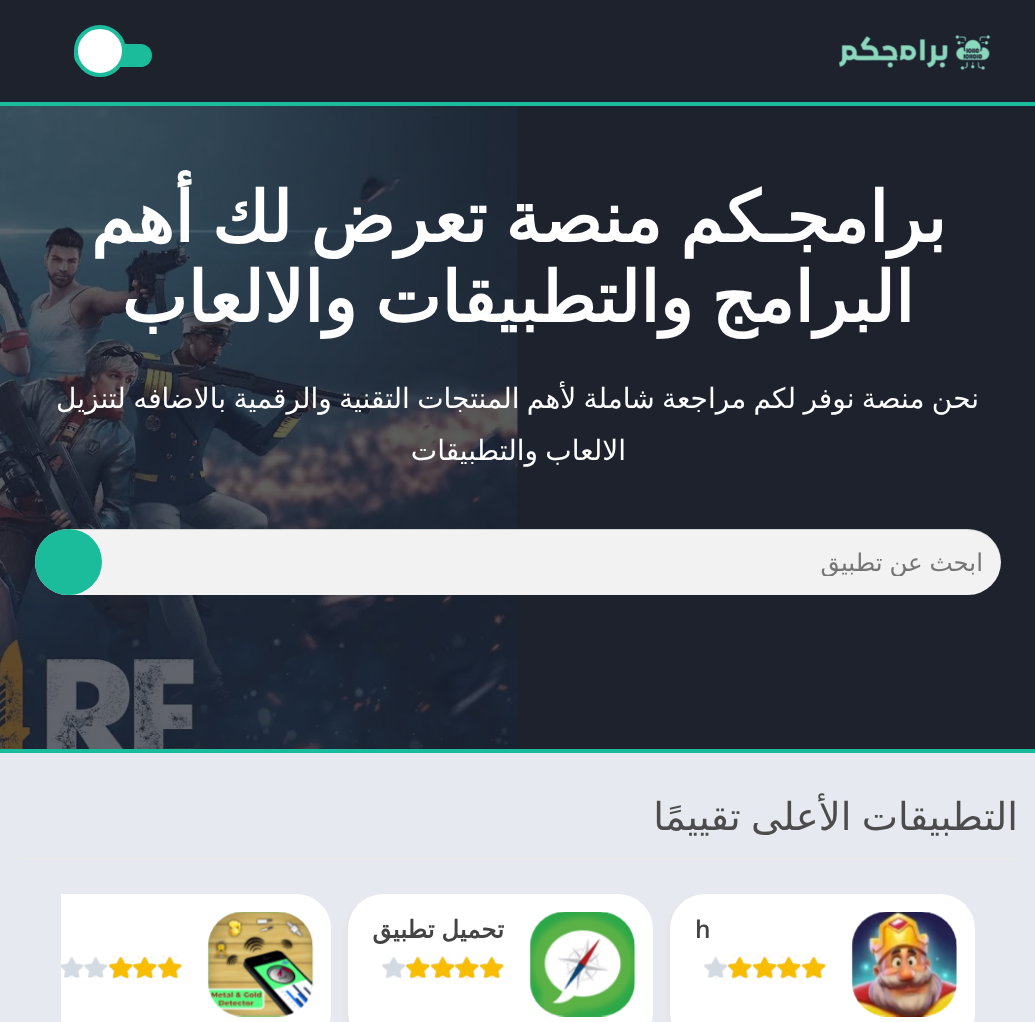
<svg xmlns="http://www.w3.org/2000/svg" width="1035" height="1022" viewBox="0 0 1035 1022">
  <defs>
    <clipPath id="clip1"><rect x="166" y="548" width="818" height="28"/></clipPath>
    <filter id="blur1" x="-50%" y="-200%" width="200%" height="500%"><feGaussianBlur stdDeviation="2"/></filter>
  </defs>
  <rect width="100%" height="100%" fill="#e6e9ef"/>
  <rect x="0" y="0" width="1035" height="102" fill="#1d222d"/>
  <rect x="0" y="102" width="1035" height="4" fill="#1bbc9b"/>
  <image x="838" y="35" width="153" height="35" href="img1.png"/>
  <rect x="74" y="44" width="78" height="23" rx="11.5" fill="#1bbc9b"/>
  <circle cx="100" cy="51" r="24" fill="#ffffff" stroke="#1bbc9b" stroke-width="4"/>
  <rect x="0" y="106" width="1035" height="643" fill="#1d222d"/>
  <rect x="0" y="749" width="1035" height="4" fill="#1bbc9b"/>
  <image x="0" y="106" width="518" height="643" href="img2.png"/>
  <text x="946" y="242" word-spacing="-4" font-family="DejaVu Sans" font-size="70" font-weight="bold" direction="rtl" fill="#ffffff">برامجـكم منصة تعرض لك أهم</text>
  <text x="914" y="322" word-spacing="-4" font-family="DejaVu Sans" font-size="70" font-weight="bold" direction="rtl" fill="#ffffff">البرامج والتطبيقات والالعاب</text>
  <text x="979" y="408" word-spacing="-1.6" font-family="DejaVu Sans" font-size="28" direction="rtl" fill="#ffffff">نحن منصة نوفر لكم مراجعة شاملة لأهم المنتجات التقنية والرقمية بالاضافه لتنزيل</text>
  <text x="626" y="460" word-spacing="-1.6" font-family="DejaVu Sans" font-size="28" direction="rtl" fill="#ffffff">الالعاب والتطبيقات</text>
  <rect x="35" y="529" width="966" height="66" rx="33" fill="#f2f2f2"/>
  <path d="M68 530H968C986 530 1000 544 1001 563V562C1001 544 986 529 968 529H68C50 529 35 544 35 562V563C36 544 50 530 68 530Z" fill="#000000" fill-opacity="0.12"/>
  <g clip-path="url(#clip1)">
    <text x="983" y="571" word-spacing="-1" font-family="DejaVu Sans" font-size="24.5" direction="rtl" fill="#757575">ابحث عن تطبيق</text>
  </g>
  <rect x="35" y="529" width="67" height="66" rx="33" fill="#1bbc9b"/>
  <rect x="18" y="858" width="1001" height="2" fill="#eaeaea"/>
  <text x="1018" y="830" word-spacing="-2" font-family="DejaVu Sans" font-size="38.5" direction="rtl" fill="#4c4c4c">التطبيقات الأعلى تقييمًا</text>
  <rect x="667" y="898" width="304" height="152" rx="35" fill="#e3e3e3" filter="url(#blur1)"/>
  <rect x="670" y="894" width="305" height="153" rx="35" fill="#ffffff"/>
  <image x="851" y="912" width="106" height="105" href="img3.png"/>
  <text x="695" y="938" font-family="Open Sans" font-size="24.5" font-weight="600" fill="#444444">h</text>
  <image x="704" y="956" width="122" height="23" href="img4.png"/>
  <image x="728" y="956" width="98" height="23" href="img5.png"/>
  <rect x="345" y="898" width="304" height="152" rx="35" fill="#e3e3e3" filter="url(#blur1)"/>
  <rect x="348" y="894" width="305" height="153" rx="35" fill="#ffffff"/>
  <image x="529" y="912" width="107" height="105" href="img6.png"/>
  <text x="504" y="938" word-spacing="-1" font-family="DejaVu Sans" font-size="24.5" font-weight="bold" direction="rtl" fill="#444444">تحميل تطبيق</text>
  <image x="382" y="956" width="122" height="23" href="img7.png"/>
  <image x="406" y="956" width="98" height="23" href="img8.png"/>
  <path d="M61 894H296C315.5 894 331 909.5 331 929V1012C331 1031.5 315.5 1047 296 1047H61Z" fill="#ffffff"/>
  <image x="207" y="912" width="107" height="105" href="img9.png"/>
  <image x="61" y="956" width="121" height="23" href="img10.png"/>
  <image x="108" y="956" width="74" height="23" href="img11.png"/>
</svg>
